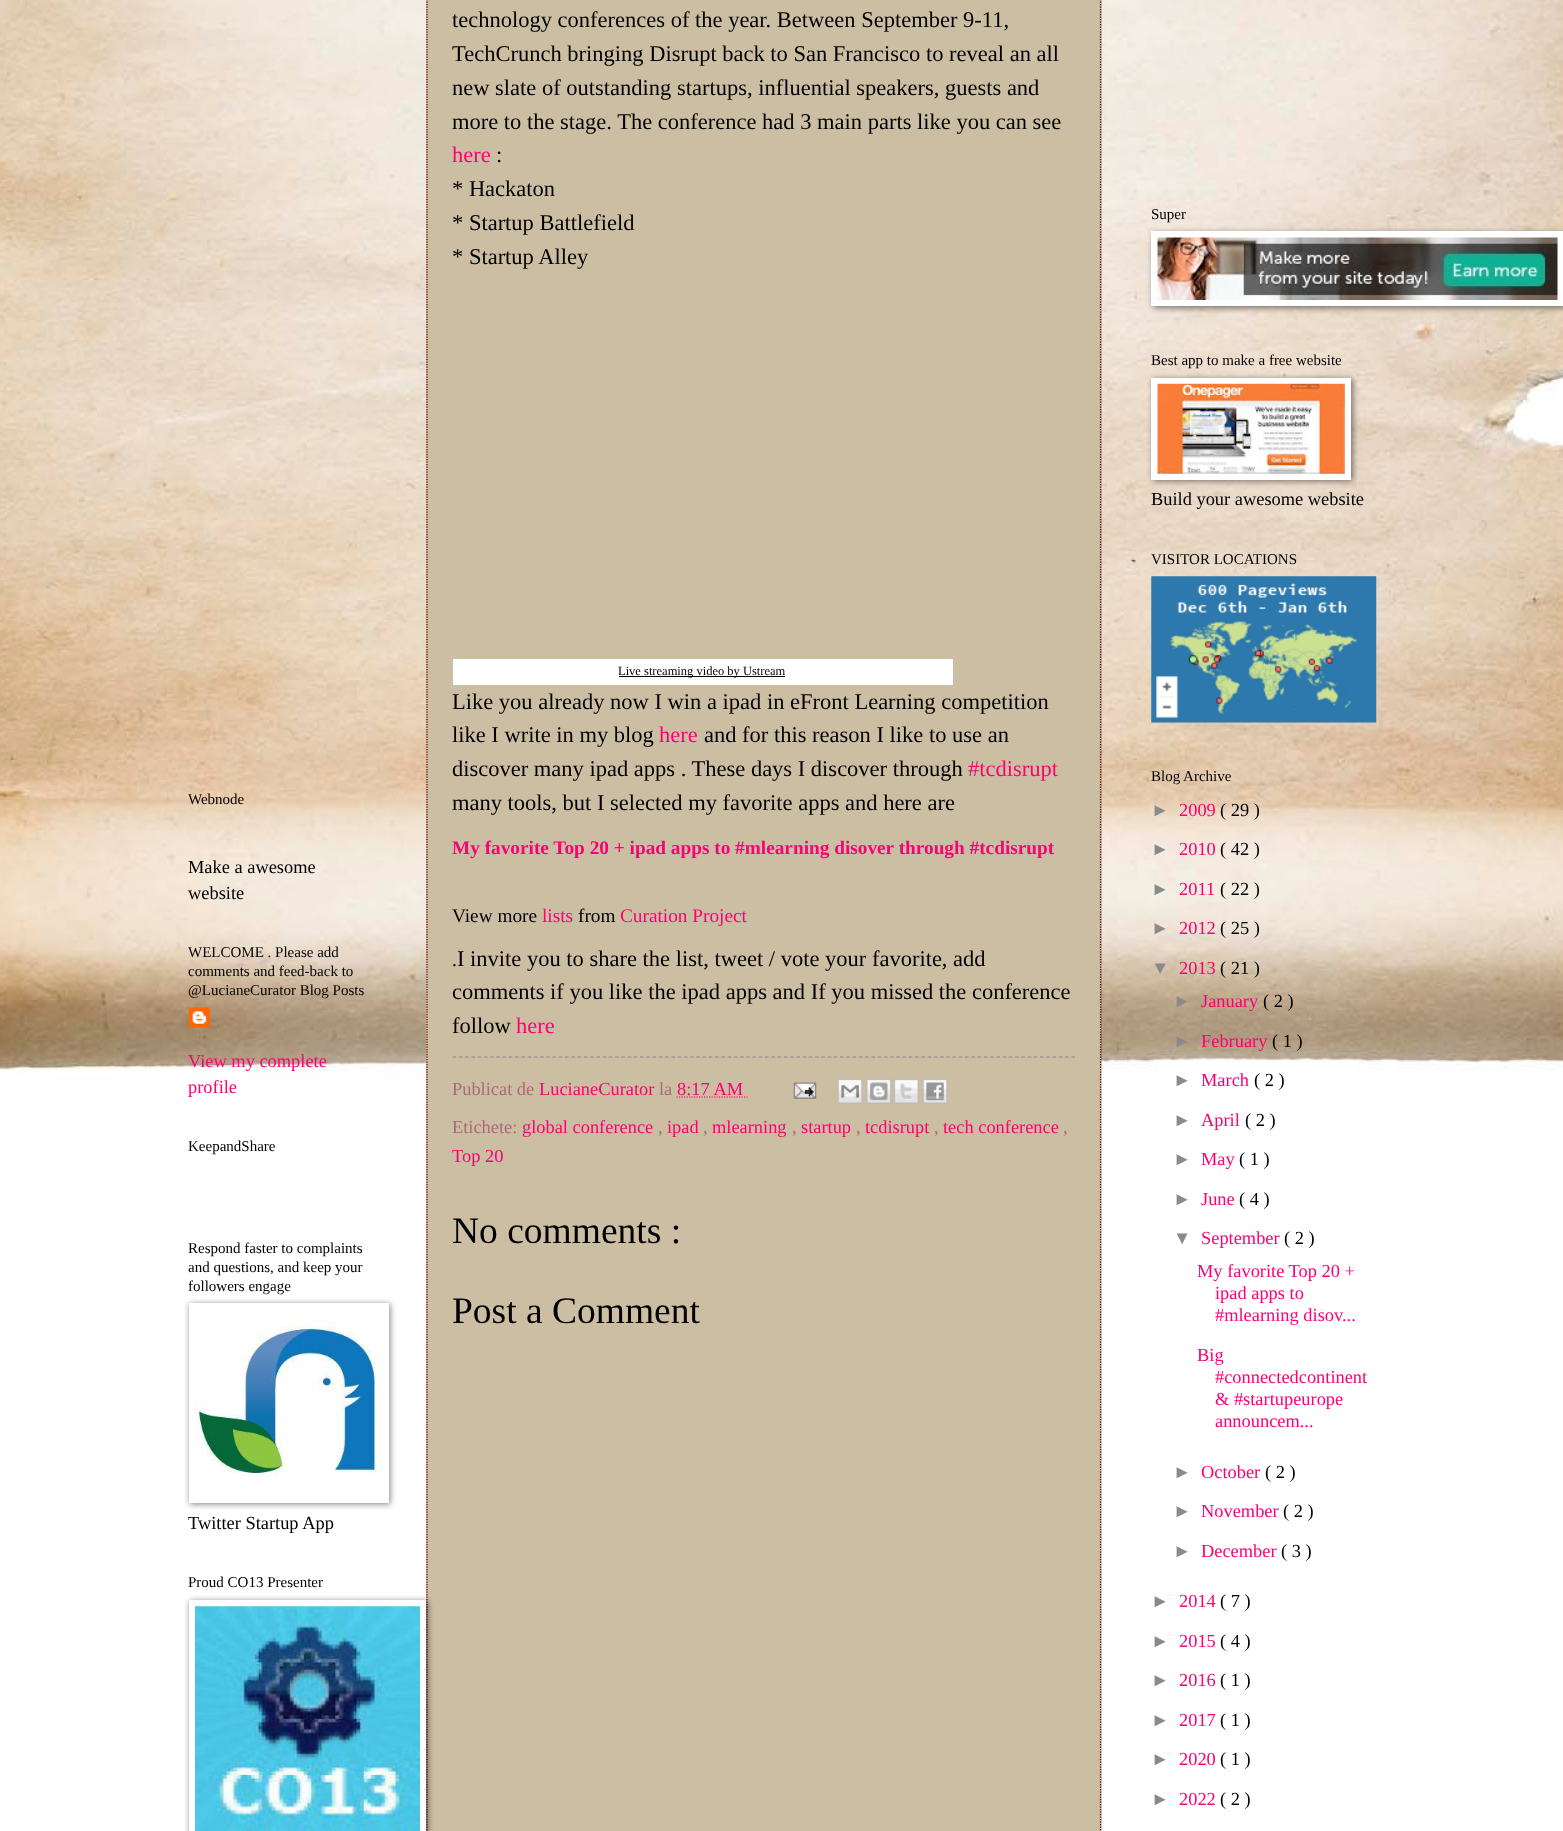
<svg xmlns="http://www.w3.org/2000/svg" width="1563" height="1831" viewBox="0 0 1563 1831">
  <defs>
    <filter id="blur1" x="-50%" y="-200%" width="200%" height="500%"><feGaussianBlur stdDeviation="3"/></filter>
    <clipPath id="clip1"><path d="M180 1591H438V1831H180ZM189 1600H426V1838H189Z" clip-rule="evenodd"/></clipPath>
  </defs>
  <rect width="100%" height="100%" fill="#ffffff"/>
  <image x="0" y="0" width="1563" height="1080" href="img1.png"/>
  <text x="188" y="804" font-family="Liberation Serif" font-size="15" fill="#000000">Webnode</text>
  <text x="188" y="873" font-family="Liberation Serif" font-size="18.4" fill="#000000">Make a awesome</text>
  <text x="188" y="899" font-family="Liberation Serif" font-size="18.4" fill="#000000">website</text>
  <text x="188" y="957" font-family="Liberation Serif" font-size="15" fill="#000000">WELCOME . Please add</text>
  <text x="188" y="976" font-family="Liberation Serif" font-size="15" fill="#000000">comments and feed-back to</text>
  <text x="188" y="995" font-family="Liberation Serif" font-size="15" fill="#000000">@LucianeCurator Blog Posts</text>
  <image x="188" y="1007" width="22" height="21" href="img2.png"/>
  <text x="188" y="1067" font-family="Liberation Serif" font-size="18.4" fill="#fc0075">View my complete</text>
  <text x="188" y="1093" font-family="Liberation Serif" font-size="18.4" fill="#fc0075">profile</text>
  <text x="188" y="1151" font-family="Liberation Serif" font-size="15" fill="#000000">KeepandShare</text>
  <text x="188" y="1253" font-family="Liberation Serif" font-size="15" fill="#000000">Respond faster to complaints</text>
  <text x="188" y="1272" font-family="Liberation Serif" font-size="15" fill="#000000">and questions, and keep your</text>
  <text x="188" y="1291" font-family="Liberation Serif" font-size="15" fill="#000000">followers engage</text>
  <rect x="190" y="1304" width="200" height="200" fill="#000000" fill-opacity="0.5" filter="url(#blur1)"/>
  <rect x="189" y="1303" width="200" height="200" fill="#ffffff"/>
  <image x="195" y="1320" width="188" height="154" href="img3.png"/>
  <text x="188" y="1529" font-family="Liberation Serif" font-size="18.4" fill="#000000">Twitter Startup App</text>
  <text x="188" y="1587" font-family="Liberation Serif" font-size="15" fill="#000000">Proud CO13 Presenter</text>
  <rect x="426" y="0" width="675" height="1831" fill="#ffeecc"/>
  <rect x="426" y="0" width="676" height="1831" fill="#000000" fill-opacity="0.2"/>
  <path d="M427-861V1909" fill="none" stroke="#660000" stroke-width="1.2" stroke-dasharray="1.25 1.25"/>
  <g clip-path="url(#clip1)">
    <rect x="190" y="1601" width="238" height="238" fill="#000000" fill-opacity="0.5" filter="url(#blur1)"/>
  </g>
  <image x="195" y="1606" width="225" height="225" href="img4.png"/>
  <path d="M1100.5-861V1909" fill="none" stroke="#660000" stroke-width="1.2" stroke-dasharray="1.25 1.25"/>
  <text x="452" y="27" font-family="Liberation Serif" font-size="22.5" fill="#000000">technology conferences of the year. Between September 9-11,</text>
  <text x="452" y="61" font-family="Liberation Serif" font-size="22.5" fill="#000000">TechCrunch bringing Disrupt back to San Francisco to reveal an all</text>
  <text x="452" y="95" font-family="Liberation Serif" font-size="22.5" fill="#000000">new slate of outstanding startups, influential speakers, guests and</text>
  <text x="452" y="129" font-family="Liberation Serif" font-size="22.5" fill="#000000">more to the stage. The conference had 3 main parts like you can see</text>
  <text x="452" y="162" font-family="Liberation Serif" font-size="22.5" fill="#fc0075">here</text>
  <text x="496" y="162" font-family="Liberation Serif" font-size="22.5" fill="#000000">:</text>
  <text x="452" y="196" font-family="Liberation Serif" font-size="22.5" fill="#000000">* Hackaton</text>
  <text x="452" y="230" font-family="Liberation Serif" font-size="22.5" fill="#000000">* Startup Battlefield</text>
  <text x="452" y="264" font-family="Liberation Serif" font-size="22.5" fill="#000000">* Startup Alley</text>
  <rect x="453" y="659" width="500" height="26" fill="#ffffff"/>
  <rect x="619" y="676" width="166" height="1" fill="#000000"/>
  <text x="618" y="675" font-family="Liberation Serif" font-size="12.5" fill="#000000">Live streaming video by Ustream</text>
  <text x="452" y="709" font-family="Liberation Serif" font-size="22.5" fill="#000000">Like you already now I win a ipad in eFront Learning competition</text>
  <text x="452" y="742" font-family="Liberation Serif" font-size="22.5" fill="#000000">like I write in my blog</text>
  <text x="659" y="742" font-family="Liberation Serif" font-size="22.5" fill="#fc0075">here</text>
  <text x="704" y="742" font-family="Liberation Serif" font-size="22.5" fill="#000000">and for this reason I like to use an</text>
  <text x="452" y="776" font-family="Liberation Serif" font-size="22.5" fill="#000000">discover many ipad apps . These days I discover through</text>
  <text x="968" y="776" font-family="Liberation Serif" font-size="22.5" fill="#fc0075">#tcdisrupt</text>
  <text x="452" y="810" font-family="Liberation Serif" font-size="22.5" fill="#000000">many tools, but I selected my favorite apps and here are</text>
  <text x="452" y="854" font-family="Liberation Serif" font-size="19.3" font-weight="bold" fill="#fc0075">My favorite Top 20 + ipad apps to #mlearning disover through #tcdisrupt</text>
  <text x="452" y="922" font-family="Liberation Serif" font-size="19.3" fill="#000000">View more</text>
  <text x="542" y="922" font-family="Liberation Serif" font-size="19.3" fill="#fc0075">lists</text>
  <text x="578" y="922" font-family="Liberation Serif" font-size="19.3" fill="#000000">from</text>
  <text x="620" y="922" font-family="Liberation Serif" font-size="19.3" fill="#fc0075">Curation Project</text>
  <text x="452" y="966" font-family="Liberation Serif" font-size="19.3" fill="#000000">.</text>
  <text x="457" y="966" font-family="Liberation Serif" font-size="22.5" fill="#000000">I invite you to share the list, tweet / vote your favorite, add</text>
  <text x="452" y="999" font-family="Liberation Serif" font-size="22.5" fill="#000000">comments if you like the ipad apps and If you missed the conference</text>
  <text x="452" y="1033" font-family="Liberation Serif" font-size="22.5" fill="#000000">follow</text>
  <text x="516" y="1033" font-family="Liberation Serif" font-size="22.5" fill="#fc0075">here</text>
  <path d="M452.5 1057H1075" fill="none" stroke="#8a8a8a" stroke-width="1.2" stroke-dasharray="3.75 2.5"/>
  <text x="452" y="1095" font-family="Liberation Serif" font-size="18.4" fill="#ab6977">Publicat de</text>
  <text x="539" y="1095" font-family="Liberation Serif" font-size="18.4" fill="#fc0075">LucianeCurator</text>
  <text x="659" y="1095" font-family="Liberation Serif" font-size="18.4" fill="#ab6977">la</text>
  <text x="677" y="1095" font-family="Liberation Serif" font-size="18.4" fill="#fc0075">8:17 AM</text>
  <path d="M676.5 1097H747.5" fill="none" stroke="#fc0075" stroke-width="1.2" stroke-dasharray="1.25 1.25"/>
  <image x="793" y="1082" width="24" height="17" href="img5.png"/>
  <image x="837" y="1078" width="26" height="26" href="img6.png"/>
  <image x="866" y="1078" width="26" height="26" href="img7.png"/>
  <image x="893" y="1078" width="26" height="26" href="img8.png"/>
  <image x="922" y="1078" width="26" height="26" href="img9.png"/>
  <text x="452" y="1133" font-family="Liberation Serif" font-size="18.4" fill="#ab6977">Etichete:</text>
  <text x="522" y="1133" font-family="Liberation Serif" font-size="18.4" fill="#fc0075">global conference</text>
  <text x="658" y="1133" font-family="Liberation Serif" font-size="18.4" fill="#ab6977">,</text>
  <text x="667" y="1133" font-family="Liberation Serif" font-size="18.4" fill="#fc0075">ipad</text>
  <text x="703" y="1133" font-family="Liberation Serif" font-size="18.4" fill="#ab6977">,</text>
  <text x="712" y="1133" font-family="Liberation Serif" font-size="18.4" fill="#fc0075">mlearning</text>
  <text x="792" y="1133" font-family="Liberation Serif" font-size="18.4" fill="#ab6977">,</text>
  <text x="801" y="1133" font-family="Liberation Serif" font-size="18.4" fill="#fc0075">startup</text>
  <text x="856" y="1133" font-family="Liberation Serif" font-size="18.4" fill="#ab6977">,</text>
  <text x="865" y="1133" font-family="Liberation Serif" font-size="18.4" fill="#fc0075">tcdisrupt</text>
  <text x="934" y="1133" font-family="Liberation Serif" font-size="18.4" fill="#ab6977">,</text>
  <text x="943" y="1133" font-family="Liberation Serif" font-size="18.4" fill="#fc0075">tech conference</text>
  <text x="1063" y="1133" font-family="Liberation Serif" font-size="18.4" fill="#ab6977">,</text>
  <text x="452" y="1162" font-family="Liberation Serif" font-size="18.4" fill="#fc0075">Top 20</text>
  <text x="452" y="1243" font-family="Liberation Serif" font-size="37.5" fill="#000000">No comments :</text>
  <text x="452" y="1323" font-family="Liberation Serif" font-size="37.5" fill="#000000">Post a Comment</text>
  <text x="1151" y="219" font-family="Liberation Serif" font-size="15" fill="#000000">Super</text>
  <rect x="1153" y="233" width="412" height="75" fill="#000000" fill-opacity="0.5" filter="url(#blur1)"/>
  <rect x="1151" y="231" width="412" height="75" fill="#ffffff"/>
  <image x="1157" y="237" width="401" height="63" href="img10.png"/>
  <text x="1151" y="365" font-family="Liberation Serif" font-size="15" fill="#000000">Best app to make a free website</text>
  <rect x="1153" y="379" width="200" height="102" fill="#000000" fill-opacity="0.5" filter="url(#blur1)"/>
  <rect x="1151" y="378" width="200" height="102" fill="#ffffff"/>
  <image x="1157" y="383" width="188" height="91" href="img11.png"/>
  <text x="1151" y="505" font-family="Liberation Serif" font-size="18.4" fill="#000000">Build your awesome website</text>
  <text x="1151" y="564" font-family="Liberation Serif" font-size="15" fill="#000000">VISITOR LOCATIONS</text>
  <image x="1151" y="576" width="226" height="147" href="img12.png"/>
  <text x="1151" y="781" font-family="Liberation Serif" font-size="15" fill="#000000">Blog Archive</text>
  <text x="1151" y="816" font-family="Liberation Sans" font-size="18.4" fill="#8a8a8a">►</text>
  <text x="1179" y="816" font-family="Liberation Serif" font-size="18.4" fill="#fc0075">2009</text>
  <text x="1220" y="816" font-family="Liberation Serif" font-size="18.4" fill="#000000">( 29 )</text>
  <text x="1151" y="855" font-family="Liberation Sans" font-size="18.4" fill="#8a8a8a">►</text>
  <text x="1179" y="855" font-family="Liberation Serif" font-size="18.4" fill="#fc0075">2010</text>
  <text x="1220" y="855" font-family="Liberation Serif" font-size="18.4" fill="#000000">( 42 )</text>
  <text x="1151" y="895" font-family="Liberation Sans" font-size="18.4" fill="#8a8a8a">►</text>
  <text x="1179" y="895" font-family="Liberation Serif" font-size="18.4" fill="#fc0075">2011</text>
  <text x="1220" y="895" font-family="Liberation Serif" font-size="18.4" fill="#000000">( 22 )</text>
  <text x="1151" y="934" font-family="Liberation Sans" font-size="18.4" fill="#8a8a8a">►</text>
  <text x="1179" y="934" font-family="Liberation Serif" font-size="18.4" fill="#fc0075">2012</text>
  <text x="1220" y="934" font-family="Liberation Serif" font-size="18.4" fill="#000000">( 25 )</text>
  <text x="1151" y="974" font-family="Liberation Sans" font-size="18.4" fill="#8a8a8a">▼</text>
  <text x="1179" y="974" font-family="Liberation Serif" font-size="18.4" fill="#fc0075">2013</text>
  <text x="1220" y="974" font-family="Liberation Serif" font-size="18.4" fill="#000000">( 21 )</text>
  <text x="1173" y="1007" font-family="Liberation Sans" font-size="18.4" fill="#8a8a8a">►</text>
  <text x="1201" y="1007" font-family="Liberation Serif" font-size="18.4" fill="#fc0075">January</text>
  <text x="1263" y="1007" font-family="Liberation Serif" font-size="18.4" fill="#000000">( 2 )</text>
  <text x="1173" y="1047" font-family="Liberation Sans" font-size="18.4" fill="#8a8a8a">►</text>
  <text x="1201" y="1047" font-family="Liberation Serif" font-size="18.4" fill="#fc0075">February</text>
  <text x="1272" y="1047" font-family="Liberation Serif" font-size="18.4" fill="#000000">( 1 )</text>
  <text x="1173" y="1086" font-family="Liberation Sans" font-size="18.4" fill="#8a8a8a">►</text>
  <text x="1201" y="1086" font-family="Liberation Serif" font-size="18.4" fill="#fc0075">March</text>
  <text x="1254" y="1086" font-family="Liberation Serif" font-size="18.4" fill="#000000">( 2 )</text>
  <text x="1173" y="1126" font-family="Liberation Sans" font-size="18.4" fill="#8a8a8a">►</text>
  <text x="1201" y="1126" font-family="Liberation Serif" font-size="18.4" fill="#fc0075">April</text>
  <text x="1245" y="1126" font-family="Liberation Serif" font-size="18.4" fill="#000000">( 2 )</text>
  <text x="1173" y="1165" font-family="Liberation Sans" font-size="18.4" fill="#8a8a8a">►</text>
  <text x="1201" y="1165" font-family="Liberation Serif" font-size="18.4" fill="#fc0075">May</text>
  <text x="1239" y="1165" font-family="Liberation Serif" font-size="18.4" fill="#000000">( 1 )</text>
  <text x="1173" y="1205" font-family="Liberation Sans" font-size="18.4" fill="#8a8a8a">►</text>
  <text x="1201" y="1205" font-family="Liberation Serif" font-size="18.4" fill="#fc0075">June</text>
  <text x="1239" y="1205" font-family="Liberation Serif" font-size="18.4" fill="#000000">( 4 )</text>
  <text x="1173" y="1244" font-family="Liberation Sans" font-size="18.4" fill="#8a8a8a">▼</text>
  <text x="1201" y="1244" font-family="Liberation Serif" font-size="18.4" fill="#fc0075">September</text>
  <text x="1284" y="1244" font-family="Liberation Serif" font-size="18.4" fill="#000000">( 2 )</text>
  <text x="1197" y="1277" font-family="Liberation Serif" font-size="18.4" fill="#fc0075">My favorite Top 20 +</text>
  <text x="1215" y="1299" font-family="Liberation Serif" font-size="18.4" fill="#fc0075">ipad apps to</text>
  <text x="1215" y="1321" font-family="Liberation Serif" font-size="18.4" fill="#fc0075">#mlearning disov...</text>
  <text x="1197" y="1361" font-family="Liberation Serif" font-size="18.4" fill="#fc0075">Big</text>
  <text x="1215" y="1383" font-family="Liberation Serif" font-size="18.4" fill="#fc0075">#connectedcontinent</text>
  <text x="1215" y="1405" font-family="Liberation Serif" font-size="18.4" fill="#fc0075">&amp; #startupeurope</text>
  <text x="1215" y="1427" font-family="Liberation Serif" font-size="18.4" fill="#fc0075">announcem...</text>
  <text x="1173" y="1478" font-family="Liberation Sans" font-size="18.4" fill="#8a8a8a">►</text>
  <text x="1201" y="1478" font-family="Liberation Serif" font-size="18.4" fill="#fc0075">October</text>
  <text x="1265" y="1478" font-family="Liberation Serif" font-size="18.4" fill="#000000">( 2 )</text>
  <text x="1173" y="1517" font-family="Liberation Sans" font-size="18.4" fill="#8a8a8a">►</text>
  <text x="1201" y="1517" font-family="Liberation Serif" font-size="18.4" fill="#fc0075">November</text>
  <text x="1283" y="1517" font-family="Liberation Serif" font-size="18.4" fill="#000000">( 2 )</text>
  <text x="1173" y="1557" font-family="Liberation Sans" font-size="18.4" fill="#8a8a8a">►</text>
  <text x="1201" y="1557" font-family="Liberation Serif" font-size="18.4" fill="#fc0075">December</text>
  <text x="1281" y="1557" font-family="Liberation Serif" font-size="18.4" fill="#000000">( 3 )</text>
  <text x="1151" y="1607" font-family="Liberation Sans" font-size="18.4" fill="#8a8a8a">►</text>
  <text x="1179" y="1607" font-family="Liberation Serif" font-size="18.4" fill="#fc0075">2014</text>
  <text x="1220" y="1607" font-family="Liberation Serif" font-size="18.4" fill="#000000">( 7 )</text>
  <text x="1151" y="1647" font-family="Liberation Sans" font-size="18.4" fill="#8a8a8a">►</text>
  <text x="1179" y="1647" font-family="Liberation Serif" font-size="18.4" fill="#fc0075">2015</text>
  <text x="1220" y="1647" font-family="Liberation Serif" font-size="18.4" fill="#000000">( 4 )</text>
  <text x="1151" y="1686" font-family="Liberation Sans" font-size="18.4" fill="#8a8a8a">►</text>
  <text x="1179" y="1686" font-family="Liberation Serif" font-size="18.4" fill="#fc0075">2016</text>
  <text x="1220" y="1686" font-family="Liberation Serif" font-size="18.4" fill="#000000">( 1 )</text>
  <text x="1151" y="1726" font-family="Liberation Sans" font-size="18.4" fill="#8a8a8a">►</text>
  <text x="1179" y="1726" font-family="Liberation Serif" font-size="18.4" fill="#fc0075">2017</text>
  <text x="1220" y="1726" font-family="Liberation Serif" font-size="18.4" fill="#000000">( 1 )</text>
  <text x="1151" y="1765" font-family="Liberation Sans" font-size="18.4" fill="#8a8a8a">►</text>
  <text x="1179" y="1765" font-family="Liberation Serif" font-size="18.4" fill="#fc0075">2020</text>
  <text x="1220" y="1765" font-family="Liberation Serif" font-size="18.4" fill="#000000">( 1 )</text>
  <text x="1151" y="1805" font-family="Liberation Sans" font-size="18.4" fill="#8a8a8a">►</text>
  <text x="1179" y="1805" font-family="Liberation Serif" font-size="18.4" fill="#fc0075">2022</text>
  <text x="1220" y="1805" font-family="Liberation Serif" font-size="18.4" fill="#000000">( 2 )</text>
</svg>
